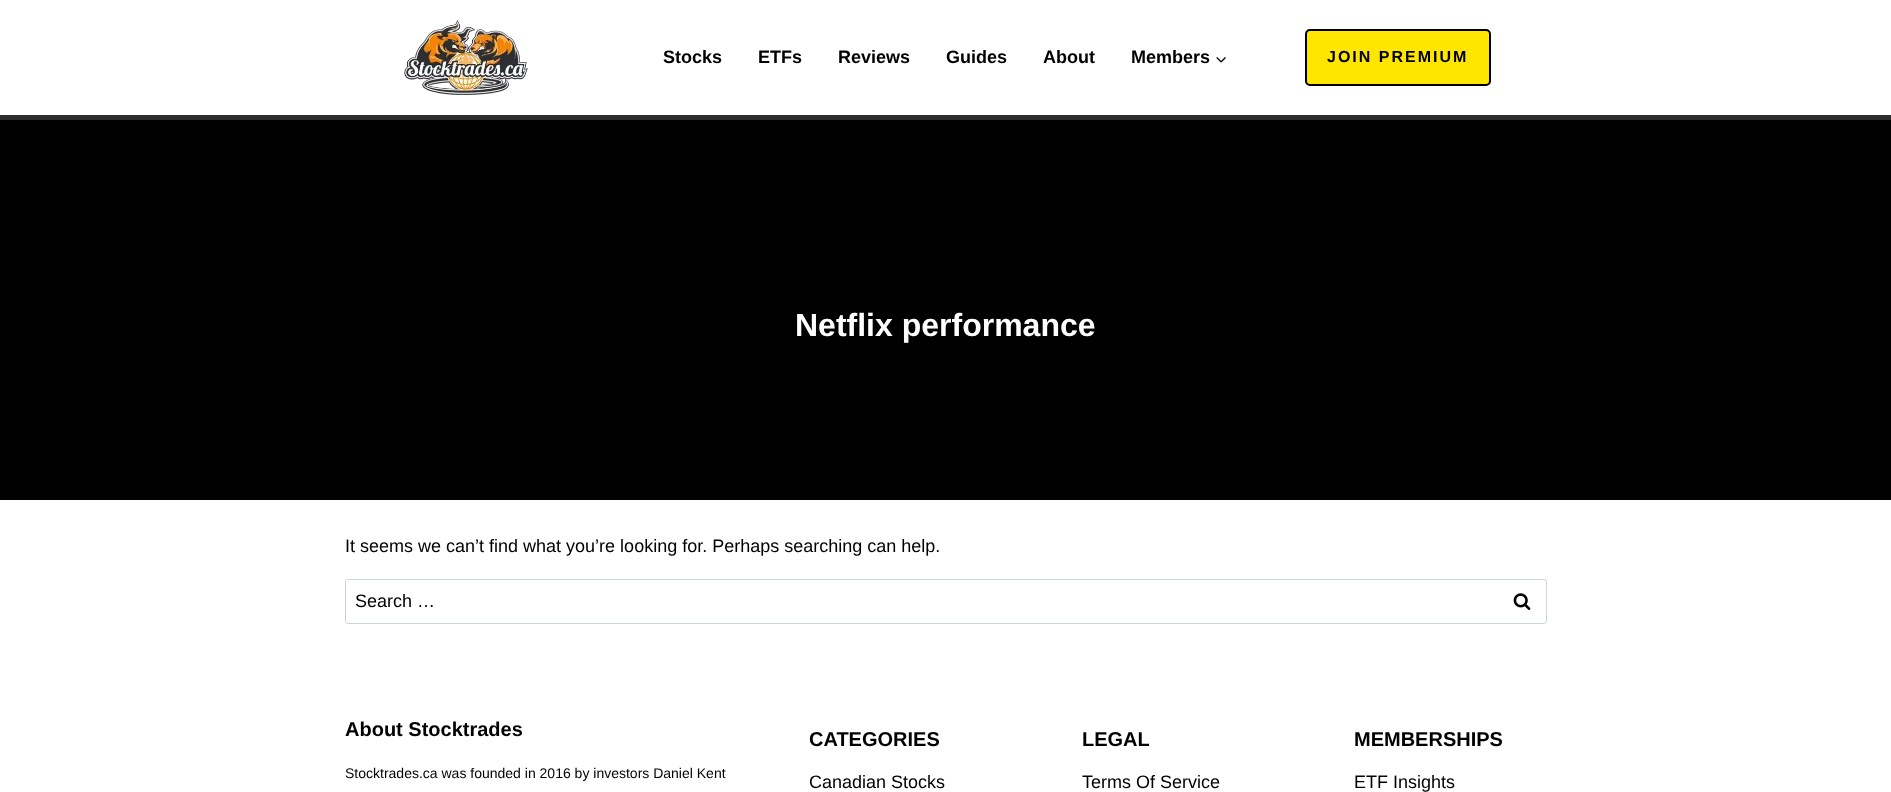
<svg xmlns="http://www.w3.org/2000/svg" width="1891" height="792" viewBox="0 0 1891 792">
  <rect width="100%" height="100%" fill="#ffffff"/>
  <rect x="0" y="115" width="1891" height="5" fill="#2b2d31"/>
  <image x="404" y="20" width="124" height="75" href="img1.png"/>
  <text x="663" y="63" font-family="Liberation Sans" font-size="18" font-weight="bold" fill="#000000">Stocks</text>
  <text x="758" y="63" font-family="Liberation Sans" font-size="18" font-weight="bold" fill="#000000">ETFs</text>
  <text x="838" y="63" font-family="Liberation Sans" font-size="18" font-weight="bold" fill="#000000">Reviews</text>
  <text x="946" y="63" font-family="Liberation Sans" font-size="18" font-weight="bold" fill="#000000">Guides</text>
  <text x="1043" y="63" font-family="Liberation Sans" font-size="18" font-weight="bold" fill="#000000">About</text>
  <text x="1131" y="63" font-family="Liberation Sans" font-size="18" font-weight="bold" fill="#000000">Members</text>
  <image x="1216" y="57" width="10" height="6" href="img2.png"/>
  <rect x="1306" y="30" width="184" height="55" rx="4" fill="#fee600" stroke="#000000" stroke-width="2"/>
  <text x="1327" y="62" font-family="Liberation Sans" font-size="16" font-weight="bold" letter-spacing="2" fill="#000000">JOIN PREMIUM</text>
  <rect x="0" y="120" width="1891" height="380" fill="#000000"/>
  <text x="795" y="336" font-family="Liberation Sans" font-size="32" font-weight="bold" fill="#ffffff">Netflix performance</text>
  <text x="345" y="552" font-family="Liberation Sans" font-size="18" fill="#000000">It seems we can’t find what you’re looking for. Perhaps searching can help.</text>
  <rect x="345.5" y="579.5" width="1201" height="44" rx="2.5" fill="none" stroke="#cbd5e0"/>
  <text x="355" y="607" font-family="Liberation Sans" font-size="18" fill="#000000">Search …</text>
  <image x="1513" y="593" width="18" height="17" href="img3.png"/>
  <text x="345" y="736" font-family="Liberation Sans" font-size="20" font-weight="bold" fill="#000000">About Stocktrades</text>
  <text x="345" y="778" font-family="Liberation Sans" font-size="14" fill="#000000">Stocktrades.ca was founded in 2016 by investors Daniel Kent</text>
  <text x="809" y="746" font-family="Liberation Sans" font-size="20" font-weight="bold" fill="#000000">CATEGORIES</text>
  <text x="809" y="788" font-family="Liberation Sans" font-size="18" fill="#000000">Canadian Stocks</text>
  <text x="1082" y="746" font-family="Liberation Sans" font-size="20" font-weight="bold" fill="#000000">LEGAL</text>
  <text x="1082" y="788" font-family="Liberation Sans" font-size="18" fill="#000000">Terms Of Service</text>
  <text x="1354" y="746" font-family="Liberation Sans" font-size="20" font-weight="bold" fill="#000000">MEMBERSHIPS</text>
  <text x="1354" y="788" font-family="Liberation Sans" font-size="18" fill="#000000">ETF Insights</text>
</svg>
